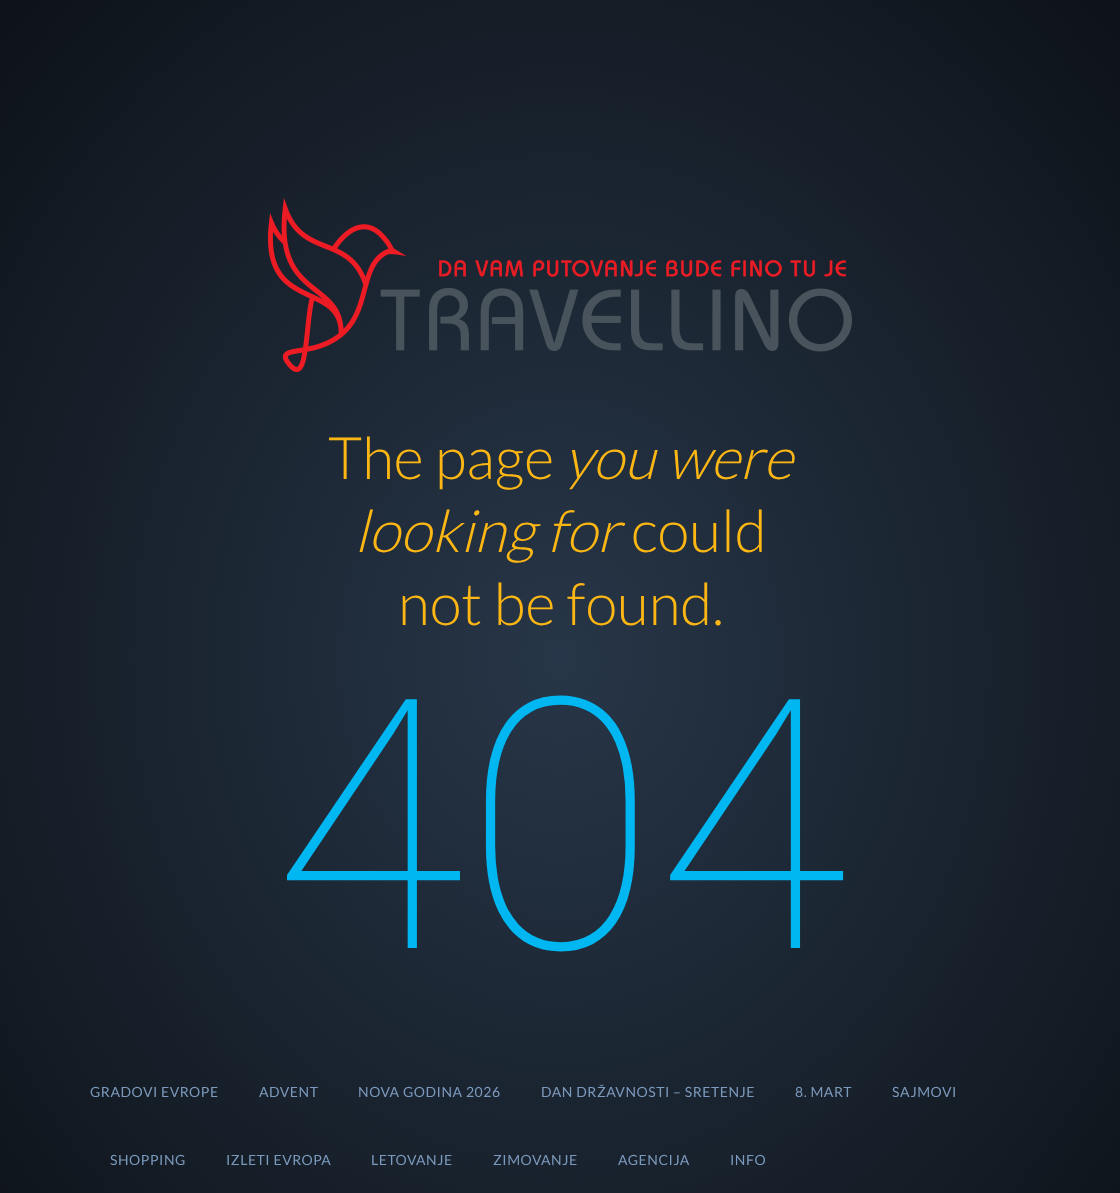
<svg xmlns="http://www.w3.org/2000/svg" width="1120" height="1193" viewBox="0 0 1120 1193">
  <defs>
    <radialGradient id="g1" gradientUnits="userSpaceOnUse" cx="0" cy="0" r="1" gradientTransform="matrix(792 0 0 931 560 658)"><stop offset="0" stop-color="#273648"/><stop offset="1" stop-color="#0d1218"/></radialGradient>
  </defs>
  <rect width="100%" height="100%" fill="#ffffff"/>
  <rect x="0" y="0" width="1120" height="1193" fill="url(#g1)"/>
  <image x="268" y="198" width="584" height="174" href="img1.png"/>
  <text x="328" y="479" font-family="Lato" font-size="58.5" font-weight="300" fill="#fdb714">The page</text>
  <text x="564" y="479" font-family="Lato" font-size="58.5" font-weight="300" font-style="italic" fill="#fdb714">you were</text>
  <text x="354" y="552" font-family="Lato" font-size="58.5" font-weight="300" font-style="italic" fill="#fdb714">looking for</text>
  <text x="631" y="552" font-family="Lato" font-size="58.5" font-weight="300" fill="#fdb714">could</text>
  <text x="398" y="625" font-family="Lato" font-size="58.5" font-weight="300" fill="#fdb714">not be found.</text>
  <text x="273" y="948" font-family="Roboto" font-size="350" font-weight="100" fill="#01b7f2">404</text>
  <text x="90" y="1097" font-family="Lato" font-size="14" letter-spacing="0.55" fill="#7c9abd">GRADOVI EVROPE</text>
  <text x="259" y="1097" font-family="Lato" font-size="14" letter-spacing="0.55" fill="#7c9abd">ADVENT</text>
  <text x="358" y="1097" font-family="Lato" font-size="14" letter-spacing="0.55" fill="#7c9abd">NOVA GODINA 2026</text>
  <text x="541" y="1097" font-family="Lato" font-size="14" letter-spacing="0.55" fill="#7c9abd">DAN DRŽAVNOSTI – SRETENJE</text>
  <text x="795" y="1097" font-family="Lato" font-size="14" letter-spacing="0.55" fill="#7c9abd">8. MART</text>
  <text x="892" y="1097" font-family="Lato" font-size="14" letter-spacing="0.55" fill="#7c9abd">SAJMOVI</text>
  <text x="110" y="1165" font-family="Lato" font-size="14" letter-spacing="0.55" fill="#7c9abd">SHOPPING</text>
  <text x="226" y="1165" font-family="Lato" font-size="14" letter-spacing="0.55" fill="#7c9abd">IZLETI EVROPA</text>
  <text x="371" y="1165" font-family="Lato" font-size="14" letter-spacing="0.55" fill="#7c9abd">LETOVANJE</text>
  <text x="493" y="1165" font-family="Lato" font-size="14" letter-spacing="0.55" fill="#7c9abd">ZIMOVANJE</text>
  <text x="618" y="1165" font-family="Lato" font-size="14" letter-spacing="0.55" fill="#7c9abd">AGENCIJA</text>
  <text x="730" y="1165" font-family="Lato" font-size="14" letter-spacing="0.55" fill="#7c9abd">INFO</text>
</svg>
